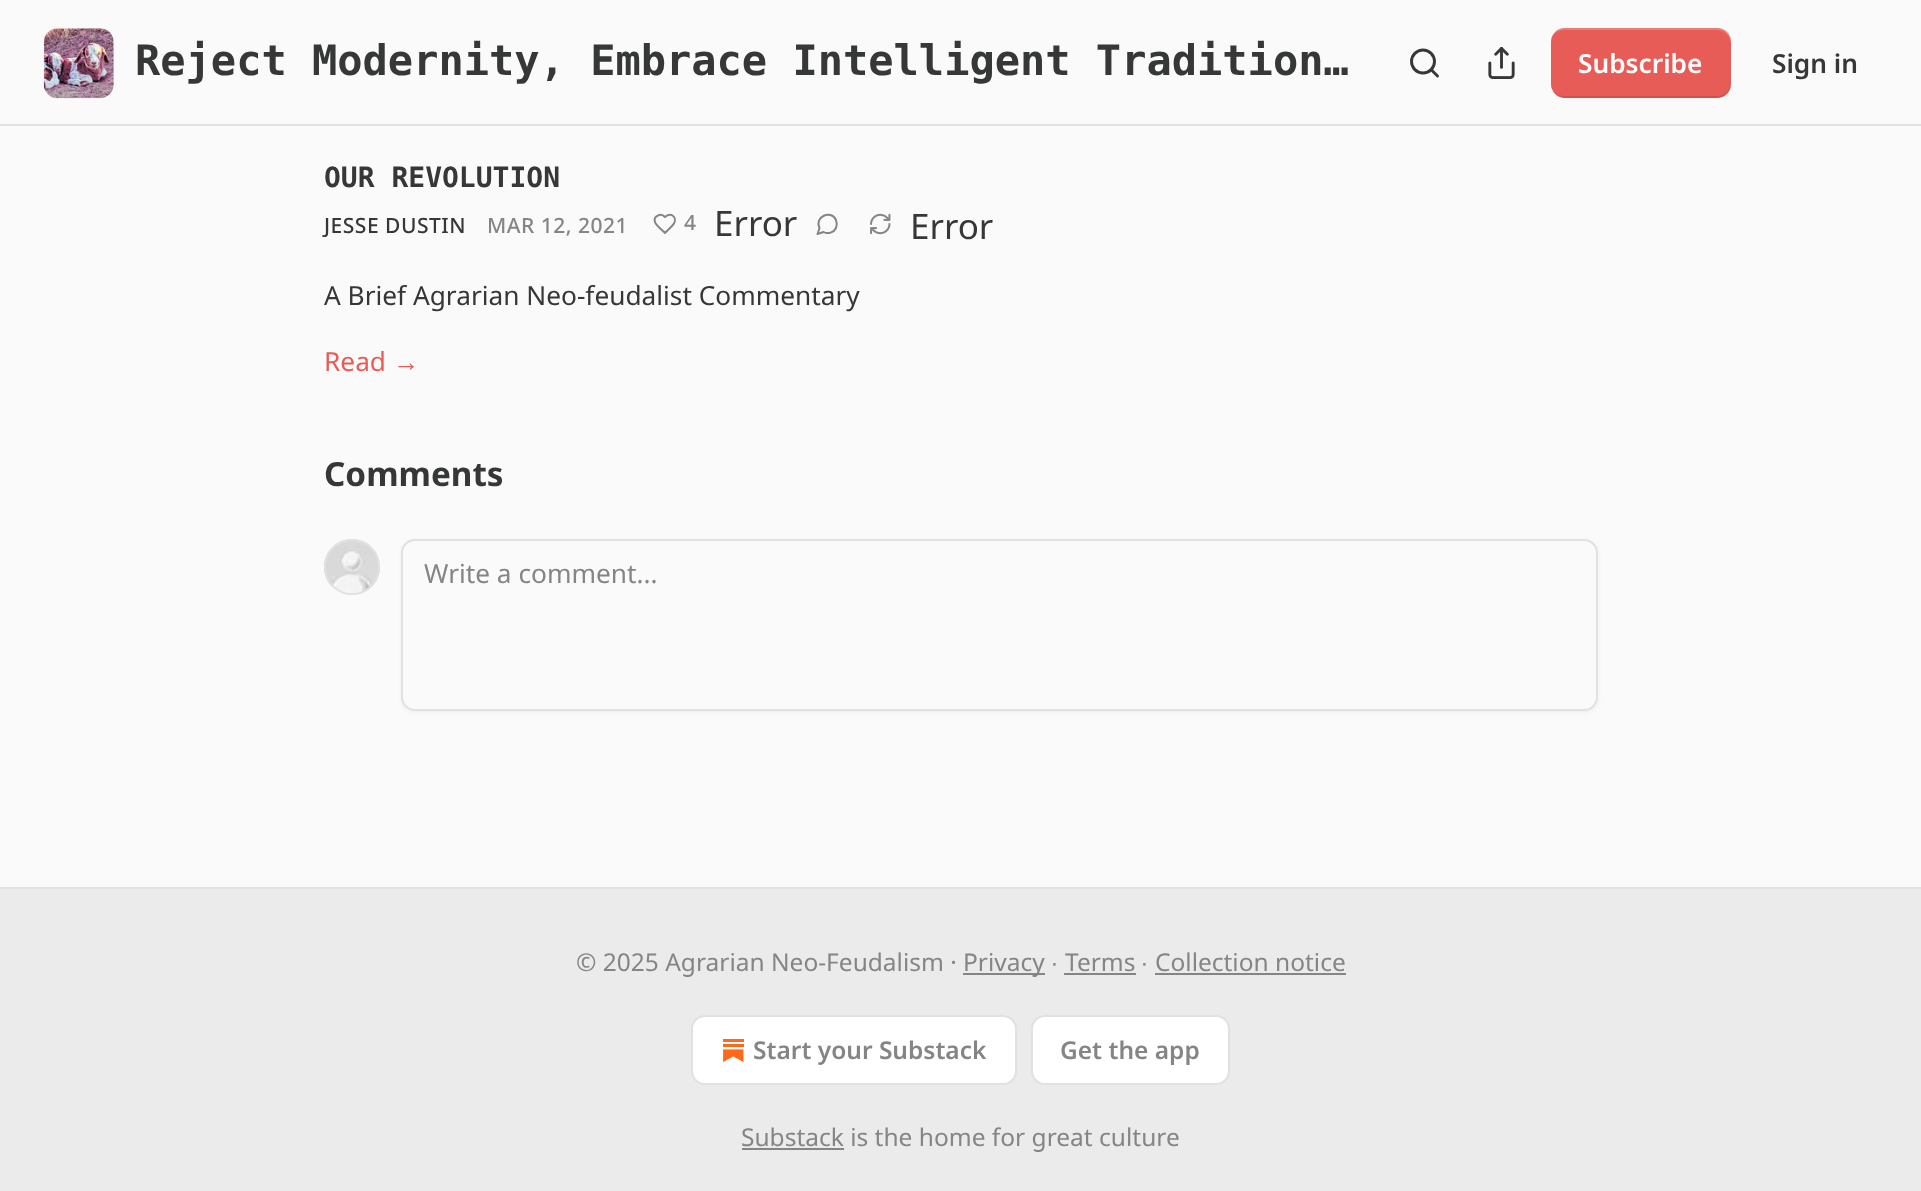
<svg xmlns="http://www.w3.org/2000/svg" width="1921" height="1191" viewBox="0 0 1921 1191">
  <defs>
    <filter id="blur1" x="-50%" y="-200%" width="200%" height="500%"><feGaussianBlur stdDeviation="2"/></filter>
  </defs>
  <rect width="100%" height="100%" fill="#fafafa"/>
  <rect x="0" y="124" width="1921" height="2" fill="#e1e1e1"/>
  <rect x="44" y="28" width="70" height="70" rx="14" fill="#ffffff"/>
  <image x="43" y="28" width="71" height="71" href="img1.png"/>
  <text x="135" y="75" font-family="DejaVu Sans Mono" font-size="42" font-weight="bold" fill="#363737">Reject Modernity, Embrace Intelligent Tradition…</text>
  <circle cx="1423" cy="61.5" r="11.5" fill="none" stroke="#363737" stroke-width="2.9"/>
  <path d="M1437.5 76L1431.5 70" fill="none" stroke="#363737" stroke-width="2.9" stroke-linecap="round" stroke-linejoin="round"/>
  <image x="1488" y="47" width="27" height="32" href="img2.png"/>
  <rect x="1551" y="28" width="180" height="70" rx="14" fill="#e85c57"/>
  <path d="M1552 89C1554 94 1559 98 1565 98H1717C1725 98 1731 92 1731 84V82C1731 90 1724 96 1717 96H1564C1559 96 1554 93 1552 89Z" fill="#000000" fill-opacity="0.1"/>
  <path d="M1564 30H1717C1724 30 1731 36 1731 44V42C1731 34 1725 28 1717 28H1565C1559 28 1554 32 1552 37C1554 33 1559 30 1564 30Z" fill="#ffffff" fill-opacity="0.2"/>
  <text x="1578" y="73" font-family="Noto Sans" font-size="26.25" font-weight="600" fill="#ffffff">Subscribe</text>
  <text x="1772" y="73" font-family="Noto Sans" font-size="26.25" font-weight="600" fill="#363737">Sign in</text>
  <text x="324" y="187" font-family="DejaVu Sans Mono" font-size="28" font-weight="bold" fill="#363737">OUR REVOLUTION</text>
  <text x="324" y="233" font-family="Noto Sans" font-size="21" font-weight="500" letter-spacing="0.5" fill="#363737">JESSE DUSTIN</text>
  <text x="487" y="233" font-family="Noto Sans" font-size="21" font-weight="500" letter-spacing="0.5" fill="#848585">MAR 12, 2021</text>
  <path d="M672 226C679.5 218.5 671 211 665 217C661 212.5 653 216 655 222C656 225.5 662.5 230.5 665 233Z" fill="none" stroke="#848585" stroke-width="2" stroke-linecap="round" stroke-linejoin="round"/>
  <text x="684" y="230" font-family="Noto Sans" font-size="21" font-weight="500" letter-spacing="0.5" fill="#848585">4</text>
  <text x="714" y="236" font-family="Noto Sans" font-size="35" fill="#363737">Error</text>
  <path d="M823.5 232C828 234.5 834 232.5 836 228C837 225.5 837 222.5 836 220C831 209 814 217 819.5 228L817.5 234Z" fill="none" stroke="#848585" stroke-width="2" stroke-linecap="round" stroke-linejoin="round"/>
  <image x="870" y="213" width="21" height="22" href="img3.png"/>
  <text x="910" y="239" font-family="Noto Sans" font-size="35" fill="#363737">Error</text>
  <text x="324" y="305" font-family="Noto Sans" font-size="26.25" fill="#363737">A Brief Agrarian Neo-feudalist Commentary</text>
  <text x="324" y="371" font-family="Noto Sans" font-size="26.25" fill="#e85c57">Read</text>
  <text x="393" y="371" font-family="Liberation Sans" font-size="26.25" fill="#e85c57">→</text>
  <text x="324" y="486" font-family="Noto Sans" font-size="33.25" font-weight="bold" fill="#363737">Comments</text>
  <circle cx="352" cy="567" r="27" fill="none" stroke="#e1e1e1" stroke-width="2"/>
  <image x="324" y="539" width="56" height="56" href="img4.png"/>
  <circle cx="352" cy="567" r="27" fill="none" stroke="#e1e1e1" stroke-width="2"/>
  <rect x="401" y="541" width="1197" height="171" rx="14" fill="#000000" fill-opacity="0.05" filter="url(#blur1)"/>
  <rect x="402" y="540" width="1195" height="170" rx="13" fill="#fafafa" stroke="#e1e1e1" stroke-width="2"/>
  <text x="424" y="583" font-family="Noto Sans" font-size="26.25" fill="#848585">Write a comment...</text>
  <rect x="0" y="889" width="1921" height="302" fill="#ebebeb"/>
  <rect x="0" y="887" width="1921" height="2" fill="#e1e1e1"/>
  <text x="576" y="971" font-family="Noto Sans" font-size="24.5" fill="#848585">© 2025 Agrarian Neo-Feudalism ·</text>
  <rect x="963" y="973" width="82" height="2" fill="#848585"/>
  <text x="963" y="971" font-family="Noto Sans" font-size="24.5" fill="#848585">Privacy</text>
  <text x="1051" y="971" font-family="Liberation Sans" font-size="24.5" fill="#848585">∙</text>
  <text x="1065" y="971" font-family="Noto Sans" font-size="24.5" fill="#848585">Terms</text>
  <rect x="1064" y="973" width="72" height="2" fill="#848585"/>
  <text x="1141" y="971" font-family="Liberation Sans" font-size="24.5" fill="#848585">∙</text>
  <text x="1155" y="971" font-family="Noto Sans" font-size="24.5" fill="#848585">Collection notice</text>
  <rect x="1155" y="973" width="191" height="2" fill="#848585"/>
  <rect x="692" y="1016" width="324" height="68" rx="13" fill="#ffffff" stroke="#e1e1e1" stroke-width="2"/>
  <image x="723" y="1039" width="21" height="23" href="img5.png"/>
  <text x="753" y="1059" font-family="Noto Sans" font-size="24.5" font-weight="600" fill="#848585">Start your Substack</text>
  <rect x="1032" y="1016" width="197" height="68" rx="13" fill="#ffffff" stroke="#e1e1e1" stroke-width="2"/>
  <text x="1060" y="1059" font-family="Noto Sans" font-size="24.5" font-weight="600" fill="#848585">Get the app</text>
  <rect x="742" y="1148" width="102" height="2" fill="#848585"/>
  <text x="741" y="1146" font-family="Noto Sans" font-size="24.5" fill="#848585">Substack is the home for great culture</text>
</svg>
